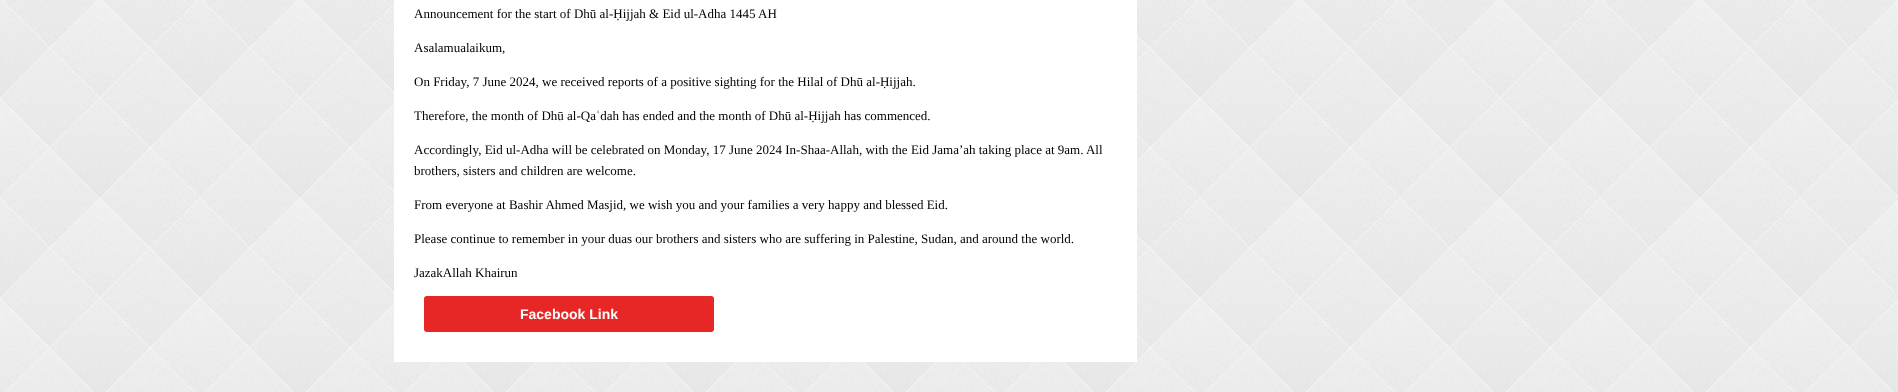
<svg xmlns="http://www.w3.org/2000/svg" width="1898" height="392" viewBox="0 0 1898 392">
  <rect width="100%" height="100%" fill="#ffffff"/>
  <image x="0" y="0" width="1898" height="392" href="img1.png"/>
  <rect x="394" y="0" width="743" height="362" fill="#ffffff"/>
  <text x="414" y="18" font-family="Liberation Serif" font-size="13" fill="#000000">Announcement for the start of Dhū al-Ḥijjah &amp; Eid ul-Adha 1445 AH</text>
  <text x="414" y="52" font-family="Liberation Serif" font-size="13" fill="#000000">Asalamualaikum,</text>
  <text x="414" y="86" font-family="Liberation Serif" font-size="13" fill="#000000">On Friday, 7 June 2024, we received reports of a positive sighting for the Hilal of Dhū al-Ḥijjah.</text>
  <text x="414" y="120" font-family="Liberation Serif" font-size="13" fill="#000000">Therefore, the month of Dhū al-Qaʿdah has ended and the month of Dhū al-Ḥijjah has commenced.</text>
  <text x="414" y="154" font-family="Liberation Serif" font-size="13" fill="#000000">Accordingly, Eid ul-Adha will be celebrated on Monday, 17 June 2024 In-Shaa-Allah, with the Eid Jama’ah taking place at 9am. All</text>
  <text x="414" y="175" font-family="Liberation Serif" font-size="13" fill="#000000">brothers, sisters and children are welcome.</text>
  <text x="414" y="209" font-family="Liberation Serif" font-size="13" fill="#000000">From everyone at Bashir Ahmed Masjid, we wish you and your families a very happy and blessed Eid.</text>
  <text x="414" y="243" font-family="Liberation Serif" font-size="13" fill="#000000">Please continue to remember in your duas our brothers and sisters who are suffering in Palestine, Sudan, and around the world.</text>
  <text x="414" y="277" font-family="Liberation Serif" font-size="13" fill="#000000">JazakAllah Khairun</text>
  <rect x="424" y="296" width="290" height="36" rx="3" fill="#e72626"/>
  <text x="520" y="319" font-family="Liberation Sans" font-size="14" font-weight="bold" fill="#ffffff">Facebook Link</text>
</svg>
